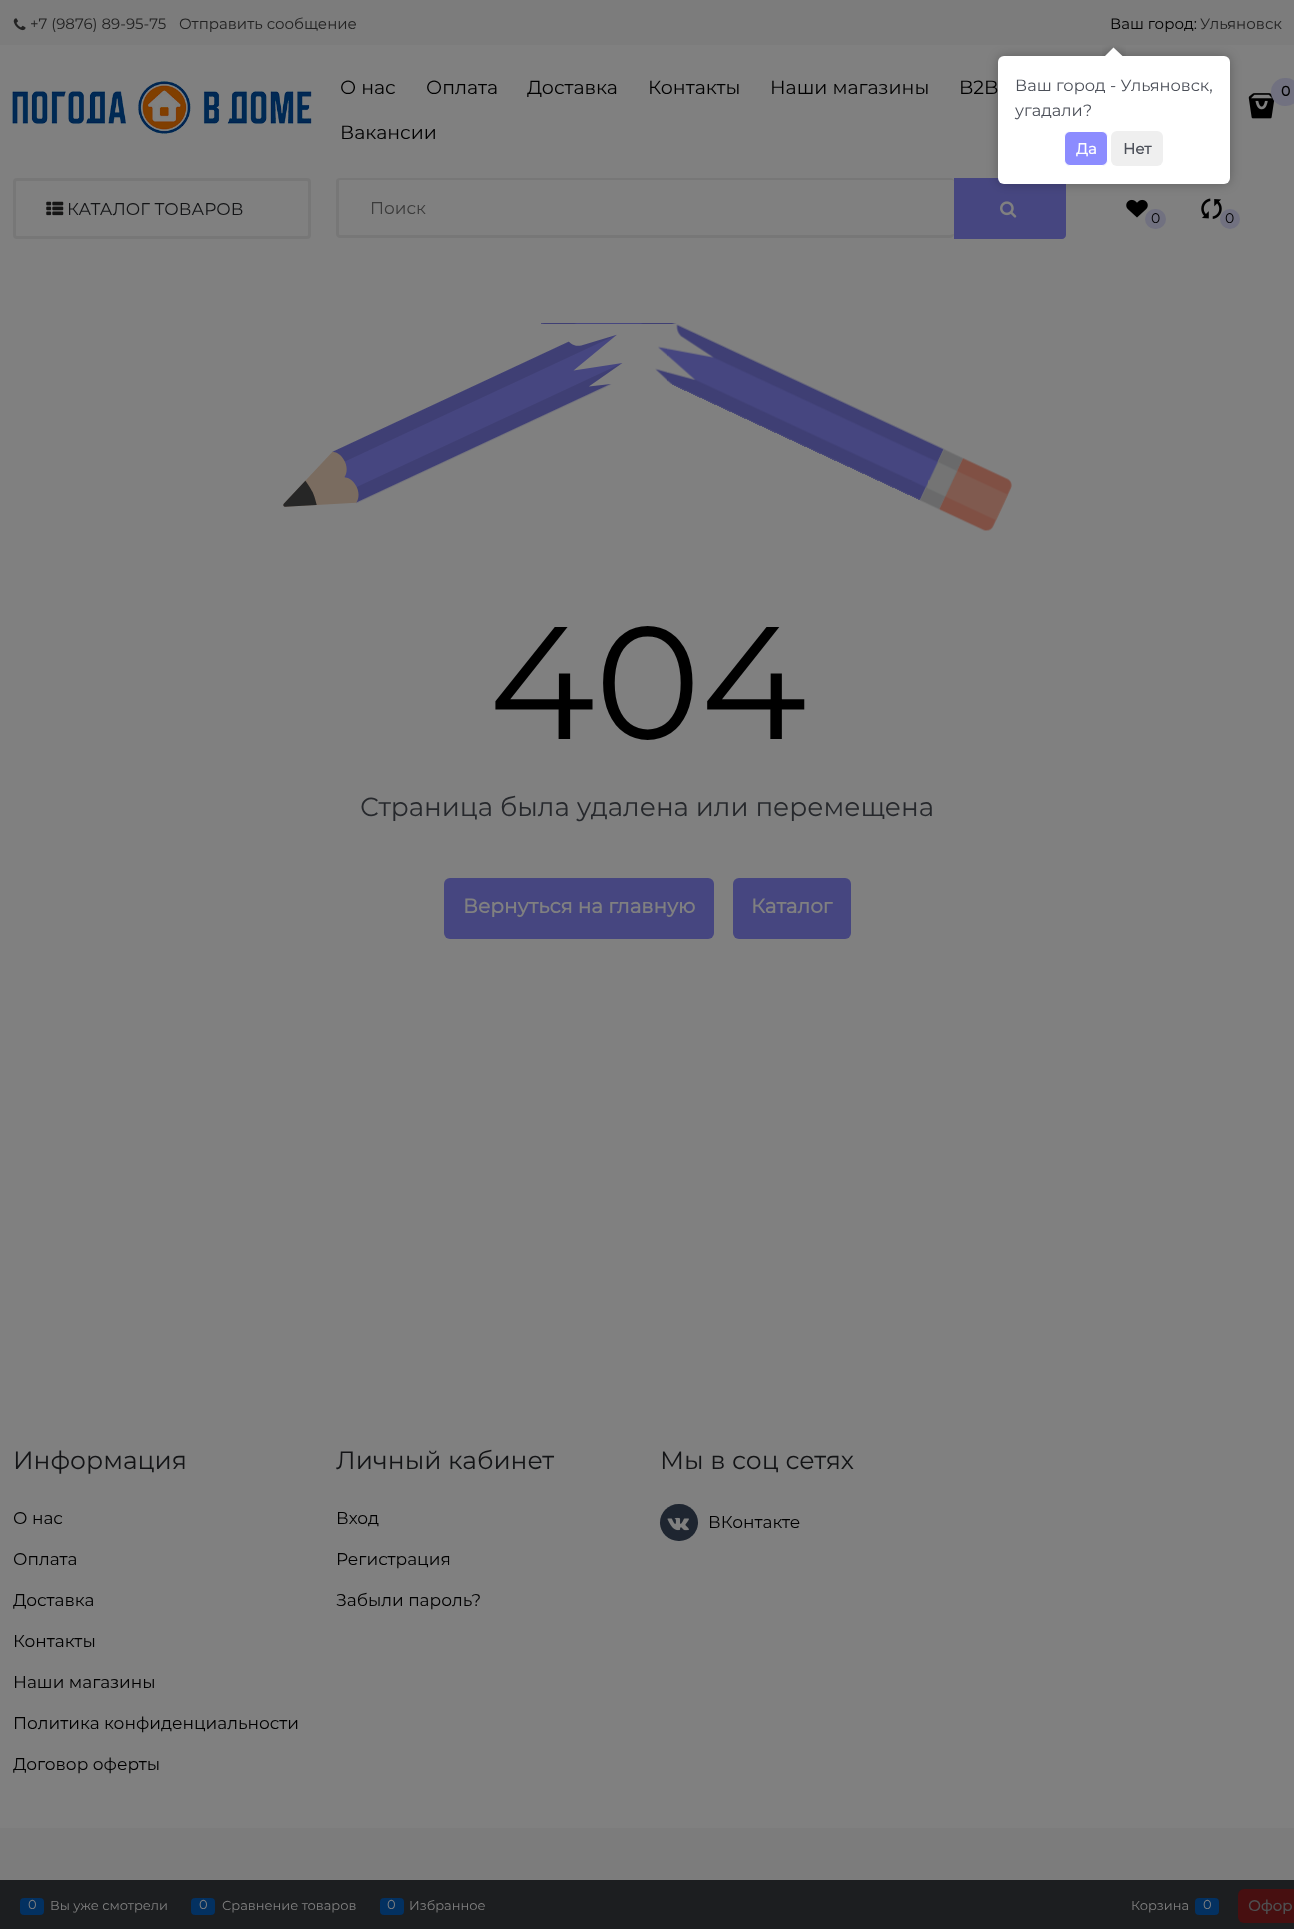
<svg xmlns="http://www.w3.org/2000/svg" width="1294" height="1929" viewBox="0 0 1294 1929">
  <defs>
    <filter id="blur1" x="-50%" y="-200%" width="200%" height="500%"><feGaussianBlur stdDeviation="5.5"/></filter>
    <clipPath id="clip1"><rect x="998" y="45" width="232" height="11"/></clipPath>
    <clipPath id="clip2"><rect x="998" y="45" width="232" height="11"/></clipPath>
  </defs>
  <rect width="100%" height="100%" fill="#808080"/>
  <rect x="0" y="0" width="1294" height="45" fill="#7c7c7c"/>
  <image x="13" y="18" width="13" height="13" href="img1.png"/>
  <text x="30" y="29" font-family="Montserrat" font-size="15" fill="#222222">+7 (9876) 89-95-75</text>
  <text x="179" y="29" font-family="Montserrat" font-size="15" fill="#222222">Отправить сообщение</text>
  <text x="1110" y="29" font-family="Montserrat" font-size="15" fill="#000000">Ваш город:</text>
  <text x="1200" y="29" font-family="Montserrat" font-size="15" fill="#222222">Ульяновск</text>
  <image x="12" y="81" width="300" height="53" href="img2.png"/>
  <text x="340" y="94" font-family="Montserrat" font-size="19" fill="#000000">О нас</text>
  <text x="426" y="94" font-family="Montserrat" font-size="19" fill="#000000">Оплата</text>
  <text x="527" y="94" font-family="Montserrat" font-size="19" fill="#000000">Доставка</text>
  <text x="648" y="94" font-family="Montserrat" font-size="19" fill="#000000">Контакты</text>
  <text x="770" y="94" font-family="Montserrat" font-size="19" fill="#000000">Наши магазины</text>
  <text x="959" y="94" font-family="Montserrat" font-size="19" fill="#000000">B2B</text>
  <text x="340" y="139" font-family="Montserrat" font-size="19" fill="#000000">Вакансии</text>
  <image x="1248" y="93" width="27" height="26" href="img3.png"/>
  <rect x="1271" y="78" width="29" height="28" rx="14" fill="#717180"/>
  <text x="1281" y="96" font-family="Montserrat" font-size="14" font-weight="bold" fill="#000000">0</text>
  <rect x="14.5" y="179.5" width="295" height="58" rx="2.5" fill="none" stroke="#777777" stroke-width="3"/>
  <image x="46" y="201" width="18" height="15" href="img4.png"/>
  <text x="67" y="215" font-family="Montserrat" font-size="17" fill="#131416">КАТАЛОГ ТОВАРОВ</text>
  <path d="M340 178H950C952 178 954 179 954 181V234C954 236 952 238 950 238H340C338 238 336 236 336 234V181C336 179 338 178 340 178ZM340 180H950C951 180 954 180 954 181V234L950 235H340C339 235 339 234 339 234V181C339 181 339 180 340 180Z" fill="#777777" fill-rule="evenodd"/>
  <text x="370" y="214" font-family="Montserrat" font-size="17" fill="#3b3b3b">Поиск</text>
  <path d="M954 178H1062C1064 178 1066 180 1066 182V235C1066 237 1064 239 1062 239H954Z" fill="#464680"/>
  <image x="1000" y="201" width="17" height="17" href="img5.png"/>
  <image x="1126" y="199" width="22" height="19" href="img6.png"/>
  <rect x="1145" y="209" width="21" height="20" rx="10" fill="#717180"/>
  <text x="1151" y="223" font-family="Montserrat" font-size="14" fill="#000000">0</text>
  <image x="1201" y="198" width="21" height="21" href="img7.png"/>
  <circle cx="1230" cy="219" r="10" fill="#717180"/>
  <text x="1225" y="223" font-family="Montserrat" font-size="14" fill="#000000">0</text>
  <image x="283" y="323" width="729" height="208" href="img8.png"/>
  <text x="489" y="739" font-family="Montserrat" font-size="160" fill="#000000">404</text>
  <text x="360" y="816" font-family="Montserrat" font-size="26.25" fill="#26282c">Страница была удалена или перемещена</text>
  <rect x="444" y="878" width="270" height="61" rx="6" fill="#464680"/>
  <text x="463" y="913" font-family="Montserrat" font-size="20" font-weight="bold" fill="#808080">Вернуться на главную</text>
  <rect x="733" y="878" width="118" height="61" rx="6" fill="#464680"/>
  <text x="751" y="913" font-family="Montserrat" font-size="20" font-weight="bold" fill="#808080">Каталог</text>
  <text x="13" y="1469" font-family="Montserrat" font-size="25" fill="#131416">Информация</text>
  <text x="13" y="1524" font-family="Montserrat" font-size="17" fill="#000000">О нас</text>
  <text x="13" y="1565" font-family="Montserrat" font-size="17" fill="#000000">Оплата</text>
  <text x="13" y="1606" font-family="Montserrat" font-size="17" fill="#000000">Доставка</text>
  <text x="13" y="1647" font-family="Montserrat" font-size="17" fill="#000000">Контакты</text>
  <text x="13" y="1688" font-family="Montserrat" font-size="17" fill="#000000">Наши магазины</text>
  <text x="13" y="1729" font-family="Montserrat" font-size="17" fill="#000000">Политика конфиденциальности</text>
  <text x="13" y="1770" font-family="Montserrat" font-size="17" fill="#000000">Договор оферты</text>
  <text x="336" y="1469" font-family="Montserrat" font-size="25" fill="#131416">Личный кабинет</text>
  <text x="336" y="1524" font-family="Montserrat" font-size="17" fill="#000000">Вход</text>
  <text x="336" y="1565" font-family="Montserrat" font-size="17" fill="#000000">Регистрация</text>
  <text x="336" y="1606" font-family="Montserrat" font-size="17" fill="#000000">Забыли пароль?</text>
  <text x="660" y="1469" font-family="Montserrat" font-size="25" fill="#131416">Мы в соц сетях</text>
  <rect x="660" y="1504" width="38" height="37" rx="18.5" fill="#1e2530"/>
  <image x="667" y="1517" width="22" height="14" href="img9.png"/>
  <text x="708" y="1528" font-family="Montserrat" font-size="17" fill="#000000">ВКонтакте</text>
  <rect x="0" y="1828" width="1294" height="52" fill="#7c7c7c"/>
  <rect x="0" y="1880" width="1294" height="49" fill="#1c1e20"/>
  <rect x="20" y="1898" width="24" height="17" rx="4" fill="#033161"/>
  <text x="28" y="1909" font-family="Montserrat" font-size="13" fill="#808080">0</text>
  <text x="50" y="1910" font-family="Montserrat" font-size="13" fill="#808080">Вы уже смотрели</text>
  <rect x="191" y="1898" width="24" height="17" rx="4" fill="#033161"/>
  <text x="199" y="1909" font-family="Montserrat" font-size="13" fill="#808080">0</text>
  <text x="222" y="1910" font-family="Montserrat" font-size="13" fill="#808080">Сравнение товаров</text>
  <rect x="380" y="1898" width="24" height="17" rx="4" fill="#033161"/>
  <text x="387" y="1909" font-family="Montserrat" font-size="13" fill="#808080">0</text>
  <text x="409" y="1910" font-family="Montserrat" font-size="13" fill="#808080">Избранное</text>
  <text x="1131" y="1910" font-family="Montserrat" font-size="13" fill="#808080">Корзина</text>
  <rect x="1195" y="1898" width="24" height="17" rx="4" fill="#033161"/>
  <text x="1203" y="1909" font-family="Montserrat" font-size="13" fill="#808080">0</text>
  <rect x="1238" y="1889" width="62" height="34" rx="6" fill="#470f10"/>
  <text x="1248" y="1911" font-family="Montserrat" font-size="15" font-weight="bold" fill="#4e4f50">Офор</text>
  <rect x="998" y="56" width="232" height="128" rx="6" fill="#000000" fill-opacity="0.25" filter="url(#blur1)"/>
  <rect x="998" y="56" width="232" height="128" rx="6" fill="#ffffff"/>
  <g clip-path="url(#clip1)">
    <rect x="1108" y="50" width="12" height="13" fill="#000000" fill-opacity="0.25" filter="url(#blur1)"/>
  </g>
  <g clip-path="url(#clip2)">
    <path d="M1113.5 47.5L1122.5 56L1113.5 65L1104.5 56.5Z" fill="#ffffff"/>
  </g>
  <text x="1015" y="91" font-family="Montserrat" font-size="16.25" fill="#4b4f58">Ваш город - Ульяновск,</text>
  <text x="1015" y="116" font-family="Montserrat" font-size="16.25" fill="#4b4f58">угадали?</text>
  <rect x="1064.5" y="131.5" width="43" height="34" rx="5.5" fill="#8c8cff" stroke="#ffffff"/>
  <text x="1076" y="154" font-family="Montserrat" font-size="15" font-weight="bold" fill="#ffffff">Да</text>
  <rect x="1111" y="131" width="52" height="35" rx="6" fill="#efefef"/>
  <text x="1123" y="154" font-family="Montserrat" font-size="15" font-weight="bold" fill="#4b4f58">Нет</text>
</svg>
